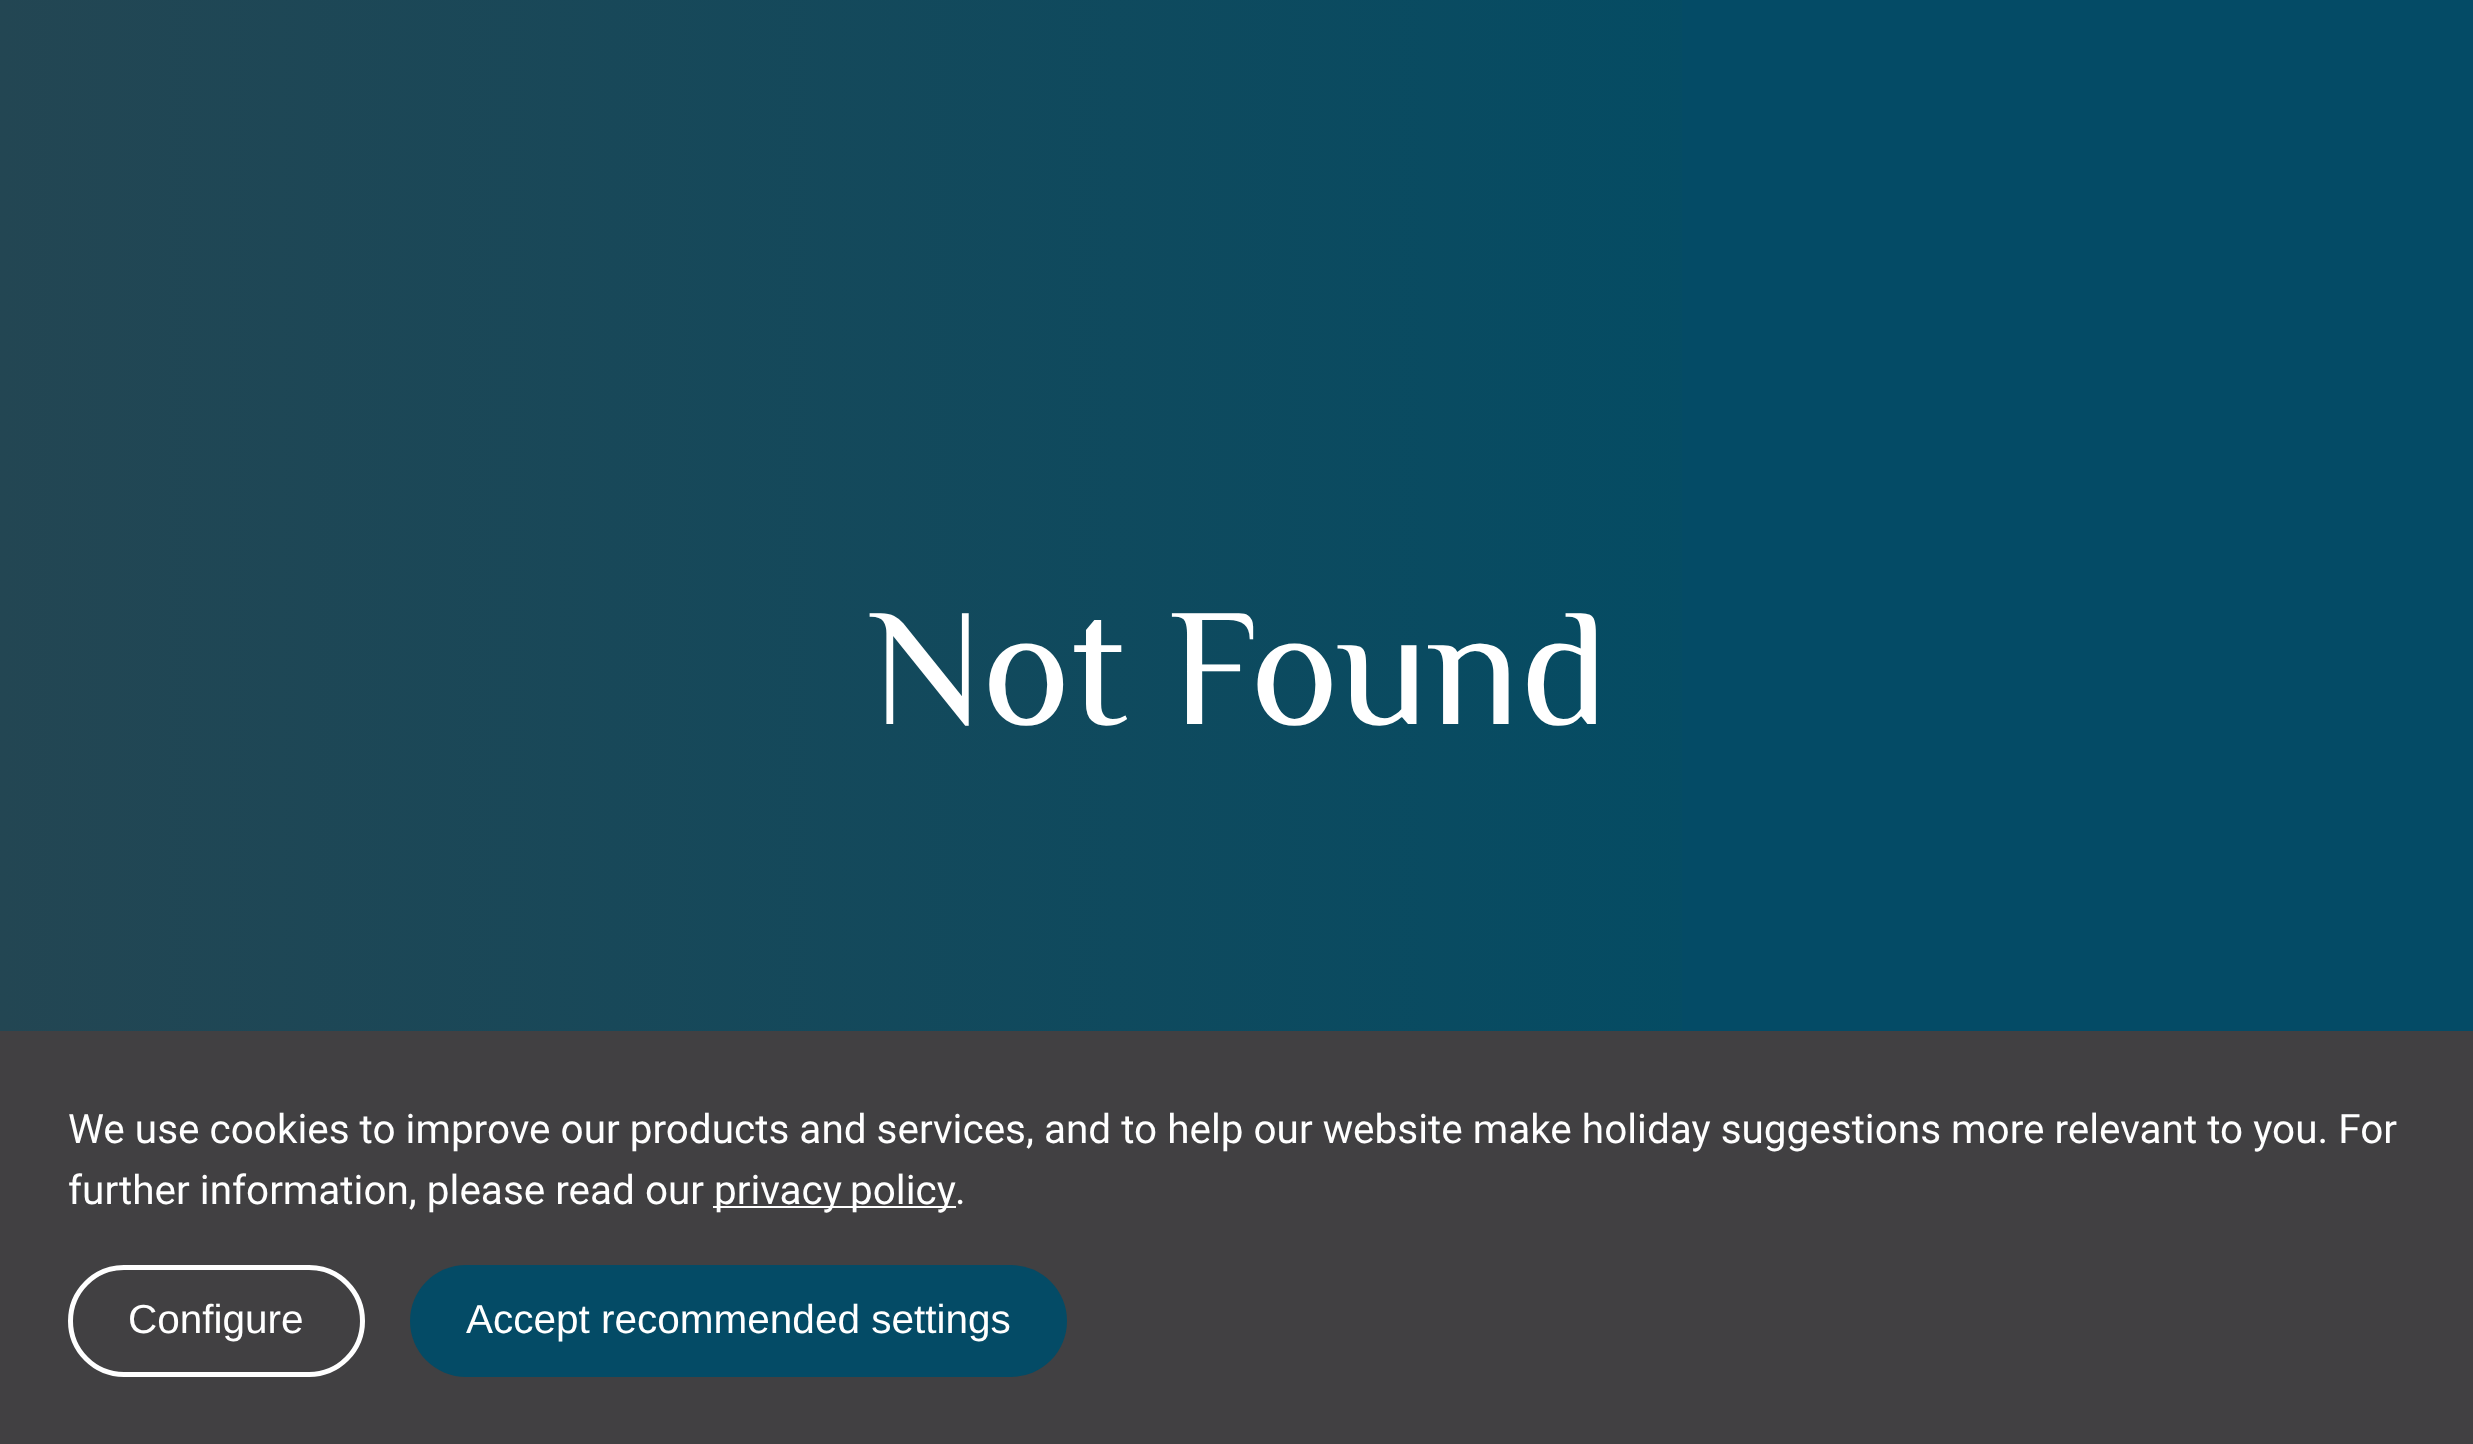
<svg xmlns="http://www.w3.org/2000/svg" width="2473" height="1444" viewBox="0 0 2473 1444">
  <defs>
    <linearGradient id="g1" gradientUnits="userSpaceOnUse" x1="0" y1="703" x2="1733" y2="703"><stop offset="0" stop-color="#234653"/><stop offset="1" stop-color="#044c64"/></linearGradient>
  </defs>
  <rect width="100%" height="100%" fill="#044b66"/>
  <rect x="0" y="0" width="1682" height="1031" fill="url(#g1)"/>
  <text x="868" y="724" font-family="El Messiri" font-size="167.75" fill="#ffffff">Not Found</text>
  <rect x="0" y="1031" width="2473" height="413" fill="#414042"/>
  <text x="68" y="1143" font-family="Roboto" font-size="40.5" fill="#ffffff">We use cookies to improve our products and services, and to help our website make holiday suggestions more relevant to you. For</text>
  <text x="68" y="1204" font-family="Roboto" font-size="40.5" fill="#ffffff">further information, please read our</text>
  <rect x="713" y="1206" width="243" height="2" fill="#ffffff"/>
  <text x="714" y="1204" word-spacing="-2" font-family="Roboto" font-size="40.5" fill="#ffffff">privacy policy</text>
  <text x="955" y="1204" font-family="Roboto" font-size="40.5" fill="#ffffff">.</text>
  <rect x="70.5" y="1267.5" width="292" height="107" rx="53.5" fill="none" stroke="#ffffff" stroke-width="5"/>
  <text x="128" y="1333" font-family="Liberation Sans" font-size="40.5" fill="#ffffff">Configure</text>
  <rect x="410" y="1265" width="657" height="112" rx="56" fill="#044b66"/>
  <text x="466" y="1333" font-family="Liberation Sans" font-size="40.5" fill="#ffffff">Accept recommended settings</text>
</svg>
